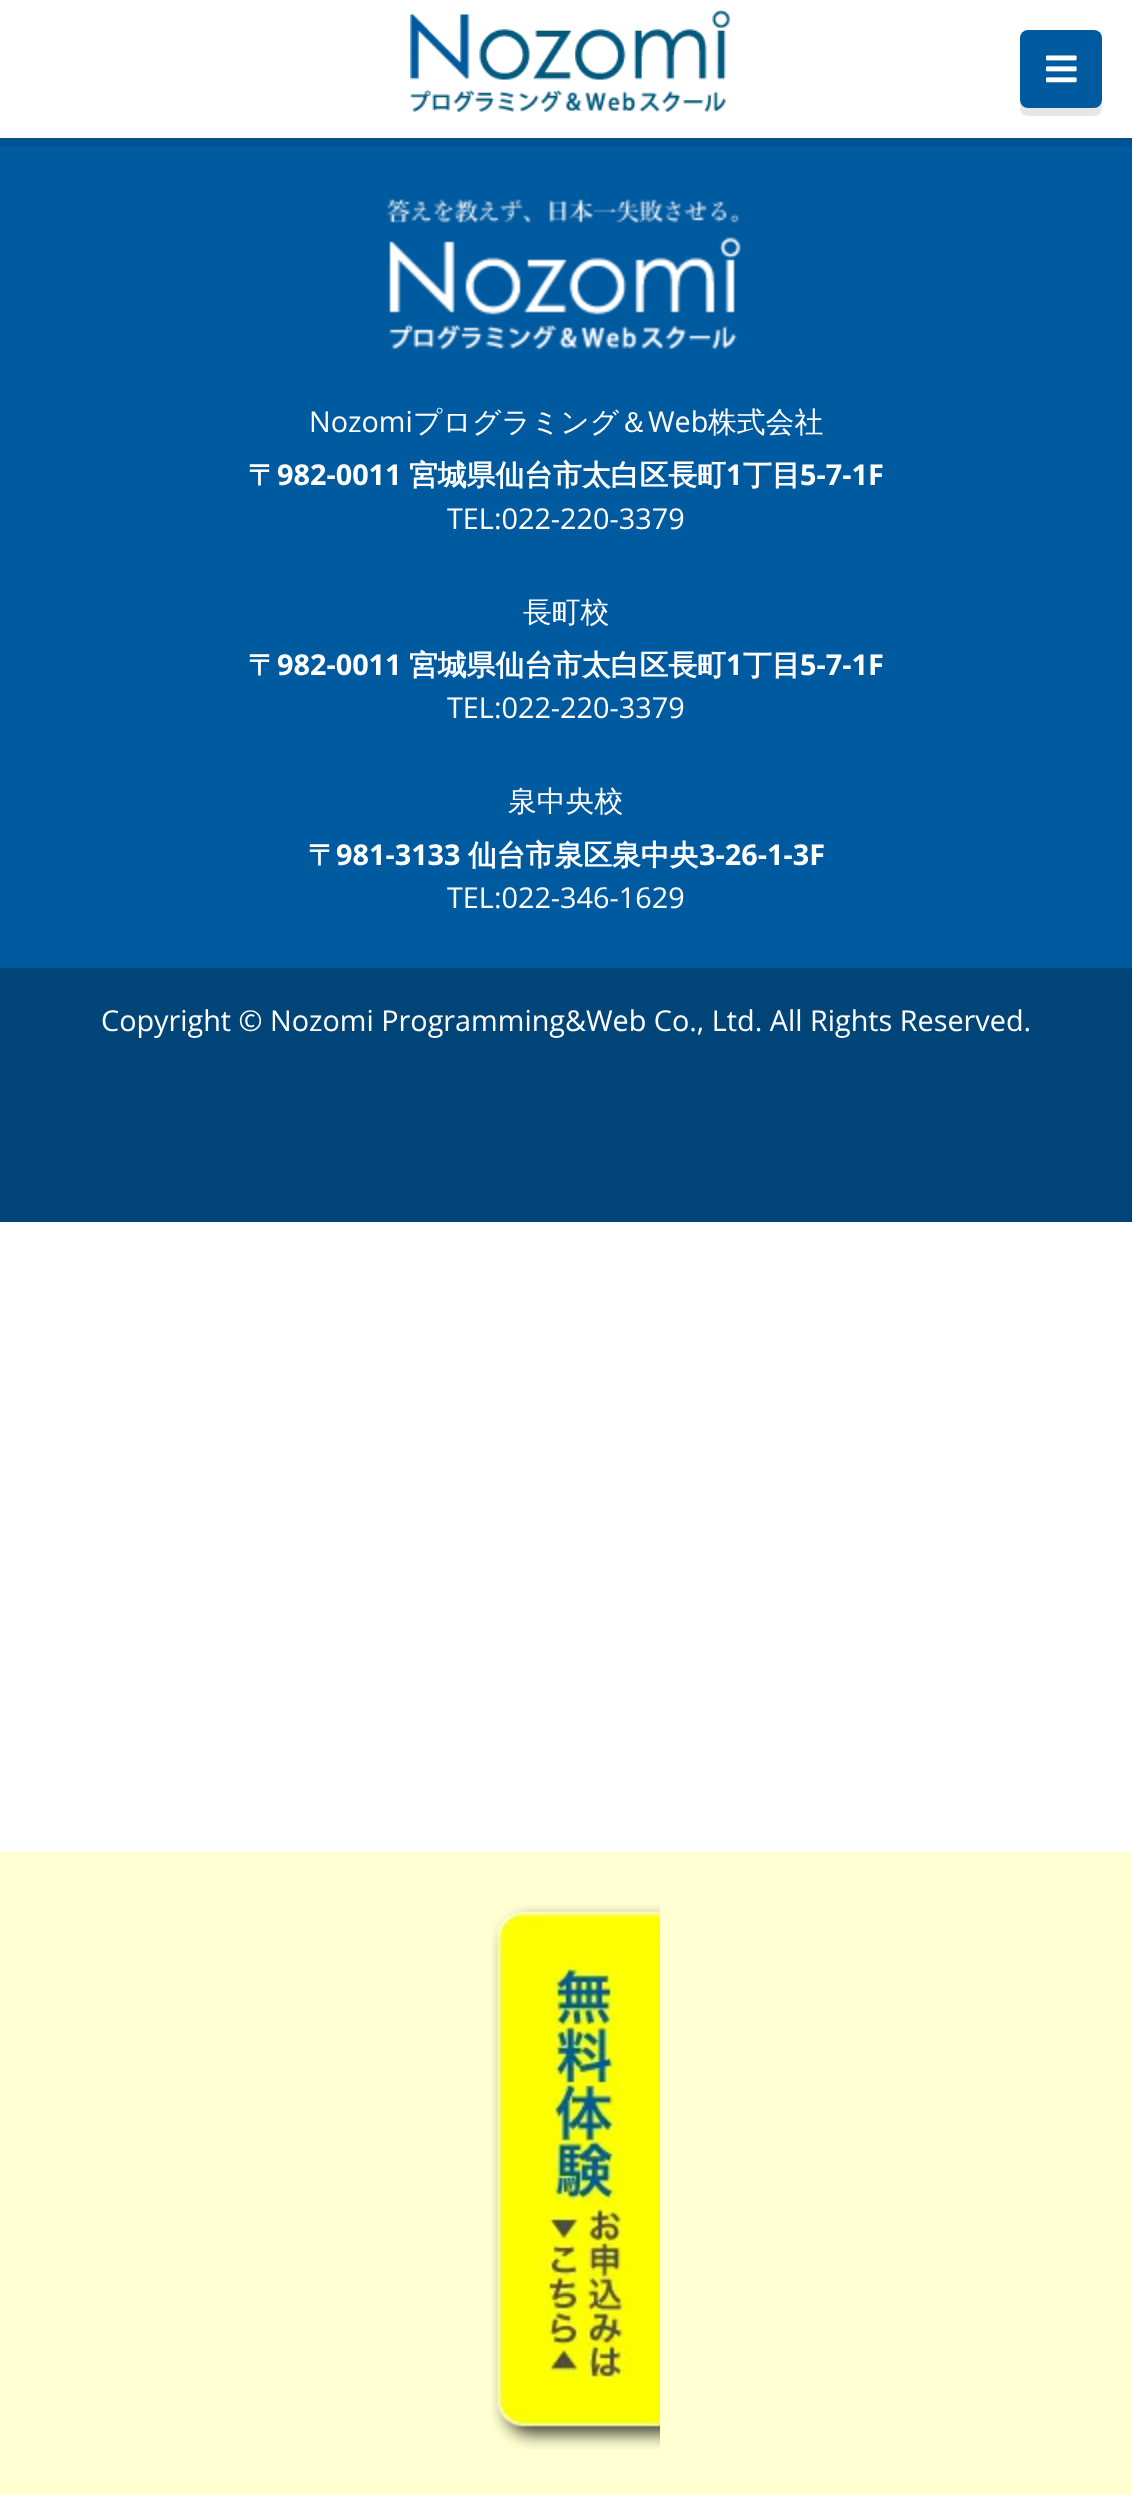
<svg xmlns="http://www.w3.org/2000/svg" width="1132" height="2495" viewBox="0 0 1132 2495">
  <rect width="100%" height="100%" fill="#ffffff"/>
  <rect x="0" y="138" width="1132" height="8" fill="#005190"/>
  <image x="410" y="10" width="320" height="102" href="img1.png"/>
  <path d="M1020 100C1020 117 1021 116 1039 116H1083C1101 116 1102 117 1102 100C1102 104 1098 108 1094 108H1028C1024 108 1020 104 1020 100Z" fill="#e6e6e6"/>
  <rect x="1020" y="30" width="82" height="78" rx="8" fill="#005aa0"/>
  <image x="1046" y="55" width="31" height="28" href="img2.png"/>
  <rect x="0" y="146" width="1132" height="822" fill="#005aa0"/>
  <image x="386" y="199" width="355" height="151" href="img3.png"/>
  <text x="309" y="432" font-family="Open Sans" font-size="28.8" fill="#ffffff">Nozomi</text>
  <text x="413" y="432" font-family="WenQuanYi Zen Hei" font-size="28.8" font-weight="500" fill="#ffffff">プログラミング＆</text>
  <text x="648" y="432" font-family="Open Sans" font-size="28.8" fill="#ffffff">Web</text>
  <text x="708" y="432" font-family="WenQuanYi Zen Hei" font-size="28.8" font-weight="500" fill="#ffffff">株式会社</text>
  <text x="248" y="485" font-family="WenQuanYi Zen Hei" font-size="28.8" font-weight="bold" fill="#ffffff">〒</text>
  <text x="277" y="485" font-family="Open Sans" font-size="28.8" font-weight="bold" fill="#ffffff">982-0011</text>
  <text x="409" y="485" font-family="WenQuanYi Zen Hei" font-size="28.8" font-weight="bold" fill="#ffffff">宮城県仙台市太白区長町</text>
  <text x="726" y="485" font-family="Open Sans" font-size="28.8" font-weight="bold" fill="#ffffff">1</text>
  <text x="743" y="485" font-family="WenQuanYi Zen Hei" font-size="28.8" font-weight="bold" fill="#ffffff">丁目</text>
  <text x="800" y="485" font-family="Open Sans" font-size="28.8" font-weight="bold" fill="#ffffff">5-7-1F</text>
  <text x="447" y="529" font-family="Open Sans" font-size="28.8" fill="#ffffff">TEL:022-220-3379</text>
  <text x="523" y="622" font-family="WenQuanYi Zen Hei" font-size="28.8" font-weight="500" fill="#ffffff">長町校</text>
  <text x="248" y="675" font-family="WenQuanYi Zen Hei" font-size="28.8" font-weight="bold" fill="#ffffff">〒</text>
  <text x="277" y="675" font-family="Open Sans" font-size="28.8" font-weight="bold" fill="#ffffff">982-0011</text>
  <text x="409" y="675" font-family="WenQuanYi Zen Hei" font-size="28.8" font-weight="bold" fill="#ffffff">宮城県仙台市太白区長町</text>
  <text x="726" y="675" font-family="Open Sans" font-size="28.8" font-weight="bold" fill="#ffffff">1</text>
  <text x="743" y="675" font-family="WenQuanYi Zen Hei" font-size="28.8" font-weight="bold" fill="#ffffff">丁目</text>
  <text x="800" y="675" font-family="Open Sans" font-size="28.8" font-weight="bold" fill="#ffffff">5-7-1F</text>
  <text x="447" y="718" font-family="Open Sans" font-size="28.8" fill="#ffffff">TEL:022-220-3379</text>
  <text x="508" y="811" font-family="WenQuanYi Zen Hei" font-size="28.8" font-weight="500" fill="#ffffff">泉中央校</text>
  <text x="308" y="865" font-family="WenQuanYi Zen Hei" font-size="28.8" font-weight="bold" fill="#ffffff">〒</text>
  <text x="336" y="865" font-family="Open Sans" font-size="28.8" font-weight="bold" fill="#ffffff">981-3133</text>
  <text x="468" y="865" font-family="WenQuanYi Zen Hei" font-size="28.8" font-weight="bold" fill="#ffffff">仙台市泉区泉中央</text>
  <text x="699" y="865" font-family="Open Sans" font-size="28.8" font-weight="bold" fill="#ffffff">3-26-1-3F</text>
  <text x="447" y="908" font-family="Open Sans" font-size="28.8" fill="#ffffff">TEL:022-346-1629</text>
  <rect x="0" y="968" width="1132" height="254" fill="#004478"/>
  <text x="101" y="1031" font-family="Open Sans" font-size="28.8" fill="#ffffff">Copyright © Nozomi Programming&amp;Web Co., Ltd. All Rights Reserved.</text>
  <rect x="0" y="1852" width="1132" height="643" fill="#ffffd2"/>
  <image x="491" y="1905" width="169" height="544" href="img4.png"/>
</svg>
